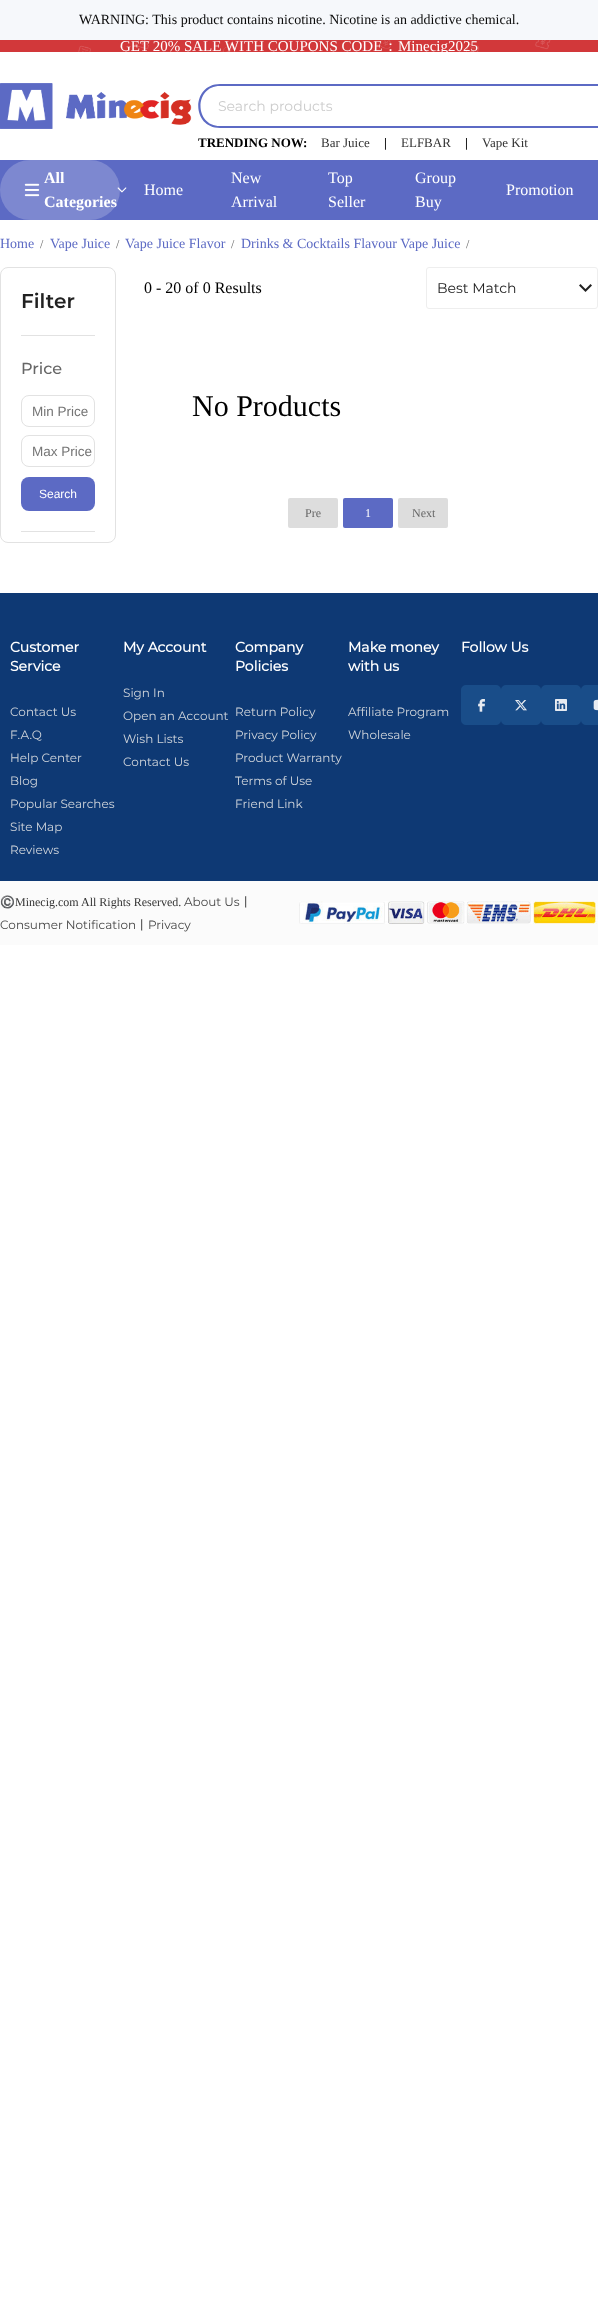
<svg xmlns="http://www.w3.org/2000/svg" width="598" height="2319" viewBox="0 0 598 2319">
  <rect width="100%" height="100%" fill="#ffffff"/>
  <rect x="0" y="0" width="598" height="40" fill="#f6f8fb"/>
  <text x="79" y="24" font-family="Liberation Serif" font-size="14" fill="#0c0c0c">WARNING: This product contains nicotine. Nicotine is an addictive chemical.</text>
  <image x="0" y="40" width="598" height="12" href="img1.png"/>
  <text x="120" y="51" font-family="Liberation Serif" font-size="15" fill="#ffffff">GET 20% SALE WITH COUPONS CODE</text>
  <text x="383" y="51" font-family="WenQuanYi Zen Hei" font-size="15" font-weight="500" fill="#ffffff">：</text>
  <text x="398" y="51" font-family="Liberation Serif" font-size="15" fill="#ffffff">Minecig2025</text>
  <image x="0" y="83" width="192" height="46" href="img2.png"/>
  <path d="M220 84H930V128H220C191 128 191 84 220 84ZM220 86H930V126H220C194 126 194 86 220 86Z" fill="#5c6ac4" fill-rule="evenodd"/>
  <text x="218" y="111" font-family="Montserrat" font-size="14" fill="#cccccc">Search products</text>
  <text x="198" y="147" font-family="Liberation Serif" font-size="13" font-weight="bold" fill="#000000">TRENDING NOW:</text>
  <text x="321" y="147" font-family="Liberation Serif" font-size="13" fill="#333333">Bar Juice</text>
  <text x="384" y="147" font-family="Liberation Serif" font-size="13" font-weight="bold" fill="#000000">|</text>
  <text x="401" y="147" font-family="Liberation Serif" font-size="13" fill="#333333">ELFBAR</text>
  <text x="465" y="147" font-family="Liberation Serif" font-size="13" font-weight="bold" fill="#000000">|</text>
  <text x="482" y="147" font-family="Liberation Serif" font-size="13" fill="#333333">Vape Kit</text>
  <rect x="0" y="160" width="598" height="60" fill="#5c6ac4"/>
  <rect x="0" y="160" width="120" height="60" rx="30" fill="#7d88d0"/>
  <image x="24" y="183" width="16" height="14" href="img3.png"/>
  <text x="44" y="183" font-family="Liberation Serif" font-size="16" font-weight="bold" fill="#ffffff">All</text>
  <text x="44" y="207" font-family="Liberation Serif" font-size="16" font-weight="bold" fill="#ffffff">Categories</text>
  <image x="117" y="187" width="10" height="6" href="img4.png"/>
  <text x="144" y="195" font-family="Liberation Serif" font-size="16" fill="#ffffff">Home</text>
  <text x="231" y="183" font-family="Liberation Serif" font-size="16" fill="#ffffff">New</text>
  <text x="231" y="207" font-family="Liberation Serif" font-size="16" fill="#ffffff">Arrival</text>
  <text x="328" y="183" font-family="Liberation Serif" font-size="16" fill="#ffffff">Top</text>
  <text x="328" y="207" font-family="Liberation Serif" font-size="16" fill="#ffffff">Seller</text>
  <text x="415" y="183" font-family="Liberation Serif" font-size="16" fill="#ffffff">Group</text>
  <text x="415" y="207" font-family="Liberation Serif" font-size="16" fill="#ffffff">Buy</text>
  <text x="506" y="195" font-family="Liberation Serif" font-size="16" fill="#ffffff">Promotion</text>
  <text x="0" y="248" font-family="Liberation Serif" font-size="14" fill="#5c6ac4">Home</text>
  <text x="40" y="248" font-family="Liberation Serif" font-size="12" fill="#666666">/</text>
  <text x="50" y="248" font-family="Liberation Serif" font-size="14" fill="#5c6ac4">Vape Juice</text>
  <text x="116" y="248" font-family="Liberation Serif" font-size="12" fill="#666666">/</text>
  <text x="125" y="248" font-family="Liberation Serif" font-size="14" fill="#5c6ac4">Vape Juice Flavor</text>
  <text x="231" y="248" font-family="Liberation Serif" font-size="12" fill="#666666">/</text>
  <text x="241" y="248" font-family="Liberation Serif" font-size="14" fill="#5c6ac4">Drinks &amp; Cocktails Flavour Vape Juice</text>
  <text x="466" y="248" font-family="Liberation Serif" font-size="12" fill="#666666">/</text>
  <rect x="0.5" y="267.5" width="115" height="275" rx="7.5" fill="none" stroke="#e2e2e2"/>
  <rect x="21" y="335" width="74" height="1" fill="#e2e2e2"/>
  <text x="21" y="308" font-family="Montserrat" font-size="20" font-weight="600" fill="#212121">Filter</text>
  <text x="21" y="374" font-family="Montserrat" font-size="16" font-weight="500" fill="#666666">Price</text>
  <rect x="21" y="531" width="74" height="1" fill="#e2e2e2"/>
  <rect x="21.5" y="395.5" width="73" height="31" rx="7.5" fill="none" stroke="#e2e2e2"/>
  <text x="32" y="416" font-family="Liberation Sans" font-size="13.5" fill="#757575">Min Price</text>
  <rect x="21.5" y="435.5" width="73" height="31" rx="7.5" fill="none" stroke="#e2e2e2"/>
  <text x="32" y="456" font-family="Liberation Sans" font-size="13.5" fill="#757575">Max Price</text>
  <rect x="21" y="477" width="74" height="34" rx="8" fill="#5c6ac4"/>
  <text x="39" y="498" font-family="Liberation Sans" font-size="12" fill="#ffffff">Search</text>
  <text x="144" y="293" font-family="Liberation Serif" font-size="16" fill="#000000">0 - 20 of 0 Results</text>
  <rect x="426.5" y="267.5" width="171" height="41" rx="2.5" fill="none" stroke="#eeeeee"/>
  <text x="437" y="293" font-family="Montserrat" font-size="14" fill="#212121">Best Match</text>
  <image x="579" y="284" width="13" height="8" href="img5.png"/>
  <text x="192" y="416" font-family="Liberation Serif" font-size="30" fill="#000000">No Products</text>
  <rect x="288" y="498" width="50" height="30" rx="2" fill="#dddddd"/>
  <text x="305" y="517" font-family="Liberation Serif" font-size="12" fill="#666666">Pre</text>
  <rect x="343" y="498" width="50" height="30" rx="2" fill="#5c6ac4"/>
  <text x="365" y="517" font-family="Liberation Serif" font-size="12" fill="#ffffff">1</text>
  <rect x="398" y="498" width="50" height="30" rx="2" fill="#dddddd"/>
  <text x="412" y="517" font-family="Liberation Serif" font-size="12" fill="#666666">Next</text>
  <rect x="0" y="593" width="598" height="288" fill="#0e3974"/>
  <text x="10" y="652" font-family="Montserrat" font-size="14" font-weight="bold" fill="#ffffff">Customer</text>
  <text x="10" y="671" font-family="Montserrat" font-size="14" font-weight="bold" fill="#ffffff">Service</text>
  <text x="10" y="716" font-family="Montserrat" font-size="12" fill="#d0d5db">Contact Us</text>
  <text x="10" y="739" font-family="Montserrat" font-size="12" fill="#d0d5db">F.A.Q</text>
  <text x="10" y="762" font-family="Montserrat" font-size="12" fill="#d0d5db">Help Center</text>
  <text x="10" y="785" font-family="Montserrat" font-size="12" fill="#d0d5db">Blog</text>
  <text x="10" y="808" font-family="Montserrat" font-size="12" fill="#d0d5db">Popular Searches</text>
  <text x="10" y="831" font-family="Montserrat" font-size="12" fill="#d0d5db">Site Map</text>
  <text x="10" y="854" font-family="Montserrat" font-size="12" fill="#d0d5db">Reviews</text>
  <text x="123" y="652" font-family="Montserrat" font-size="14" font-weight="bold" fill="#ffffff">My Account</text>
  <text x="123" y="697" font-family="Montserrat" font-size="12" fill="#d0d5db">Sign In</text>
  <text x="123" y="720" font-family="Montserrat" font-size="12" fill="#d0d5db">Open an Account</text>
  <text x="123" y="743" font-family="Montserrat" font-size="12" fill="#d0d5db">Wish Lists</text>
  <text x="123" y="766" font-family="Montserrat" font-size="12" fill="#d0d5db">Contact Us</text>
  <text x="235" y="652" font-family="Montserrat" font-size="14" font-weight="bold" fill="#ffffff">Company</text>
  <text x="235" y="671" font-family="Montserrat" font-size="14" font-weight="bold" fill="#ffffff">Policies</text>
  <text x="235" y="716" font-family="Montserrat" font-size="12" fill="#d0d5db">Return Policy</text>
  <text x="235" y="739" font-family="Montserrat" font-size="12" fill="#d0d5db">Privacy Policy</text>
  <text x="235" y="762" font-family="Montserrat" font-size="12" fill="#d0d5db">Product Warranty</text>
  <text x="235" y="785" font-family="Montserrat" font-size="12" fill="#d0d5db">Terms of Use</text>
  <text x="235" y="808" font-family="Montserrat" font-size="12" fill="#d0d5db">Friend Link</text>
  <text x="348" y="652" font-family="Montserrat" font-size="14" font-weight="bold" fill="#ffffff">Make money</text>
  <text x="348" y="671" font-family="Montserrat" font-size="14" font-weight="bold" fill="#ffffff">with us</text>
  <text x="348" y="716" font-family="Montserrat" font-size="12" fill="#d0d5db">Affiliate Program</text>
  <text x="348" y="739" font-family="Montserrat" font-size="12" fill="#d0d5db">Wholesale</text>
  <text x="461" y="652" font-family="Montserrat" font-size="14" font-weight="bold" fill="#ffffff">Follow Us</text>
  <image x="461" y="685" width="40" height="40" href="img6.png"/>
  <image x="501" y="685" width="40" height="40" href="img7.png"/>
  <image x="541" y="685" width="40" height="40" href="img8.png"/>
  <image x="581" y="685" width="17" height="40" href="img9.png"/>
  <rect x="0" y="881" width="598" height="64" fill="#fbfbfb"/>
  <text x="0" y="906" font-family="Noto Color Emoji" font-size="12" fill="#333333">©️</text>
  <text x="15" y="906" font-family="Liberation Serif" font-size="12" fill="#333333">Minecig.com All Rights Reserved.</text>
  <text x="184" y="906" font-family="Montserrat" font-size="12" fill="#474747">About Us</text>
  <text x="240" y="906" font-family="WenQuanYi Zen Hei" font-size="12" font-weight="500" fill="#333333">丨</text>
  <text x="0" y="929" font-family="Montserrat" font-size="12" fill="#474747">Consumer Notification</text>
  <text x="136" y="929" font-family="WenQuanYi Zen Hei" font-size="12" font-weight="500" fill="#333333">丨</text>
  <text x="148" y="929" font-family="Montserrat" font-size="12" fill="#474747">Privacy</text>
  <image x="299" y="901" width="299" height="23" href="img10.png"/>
</svg>
